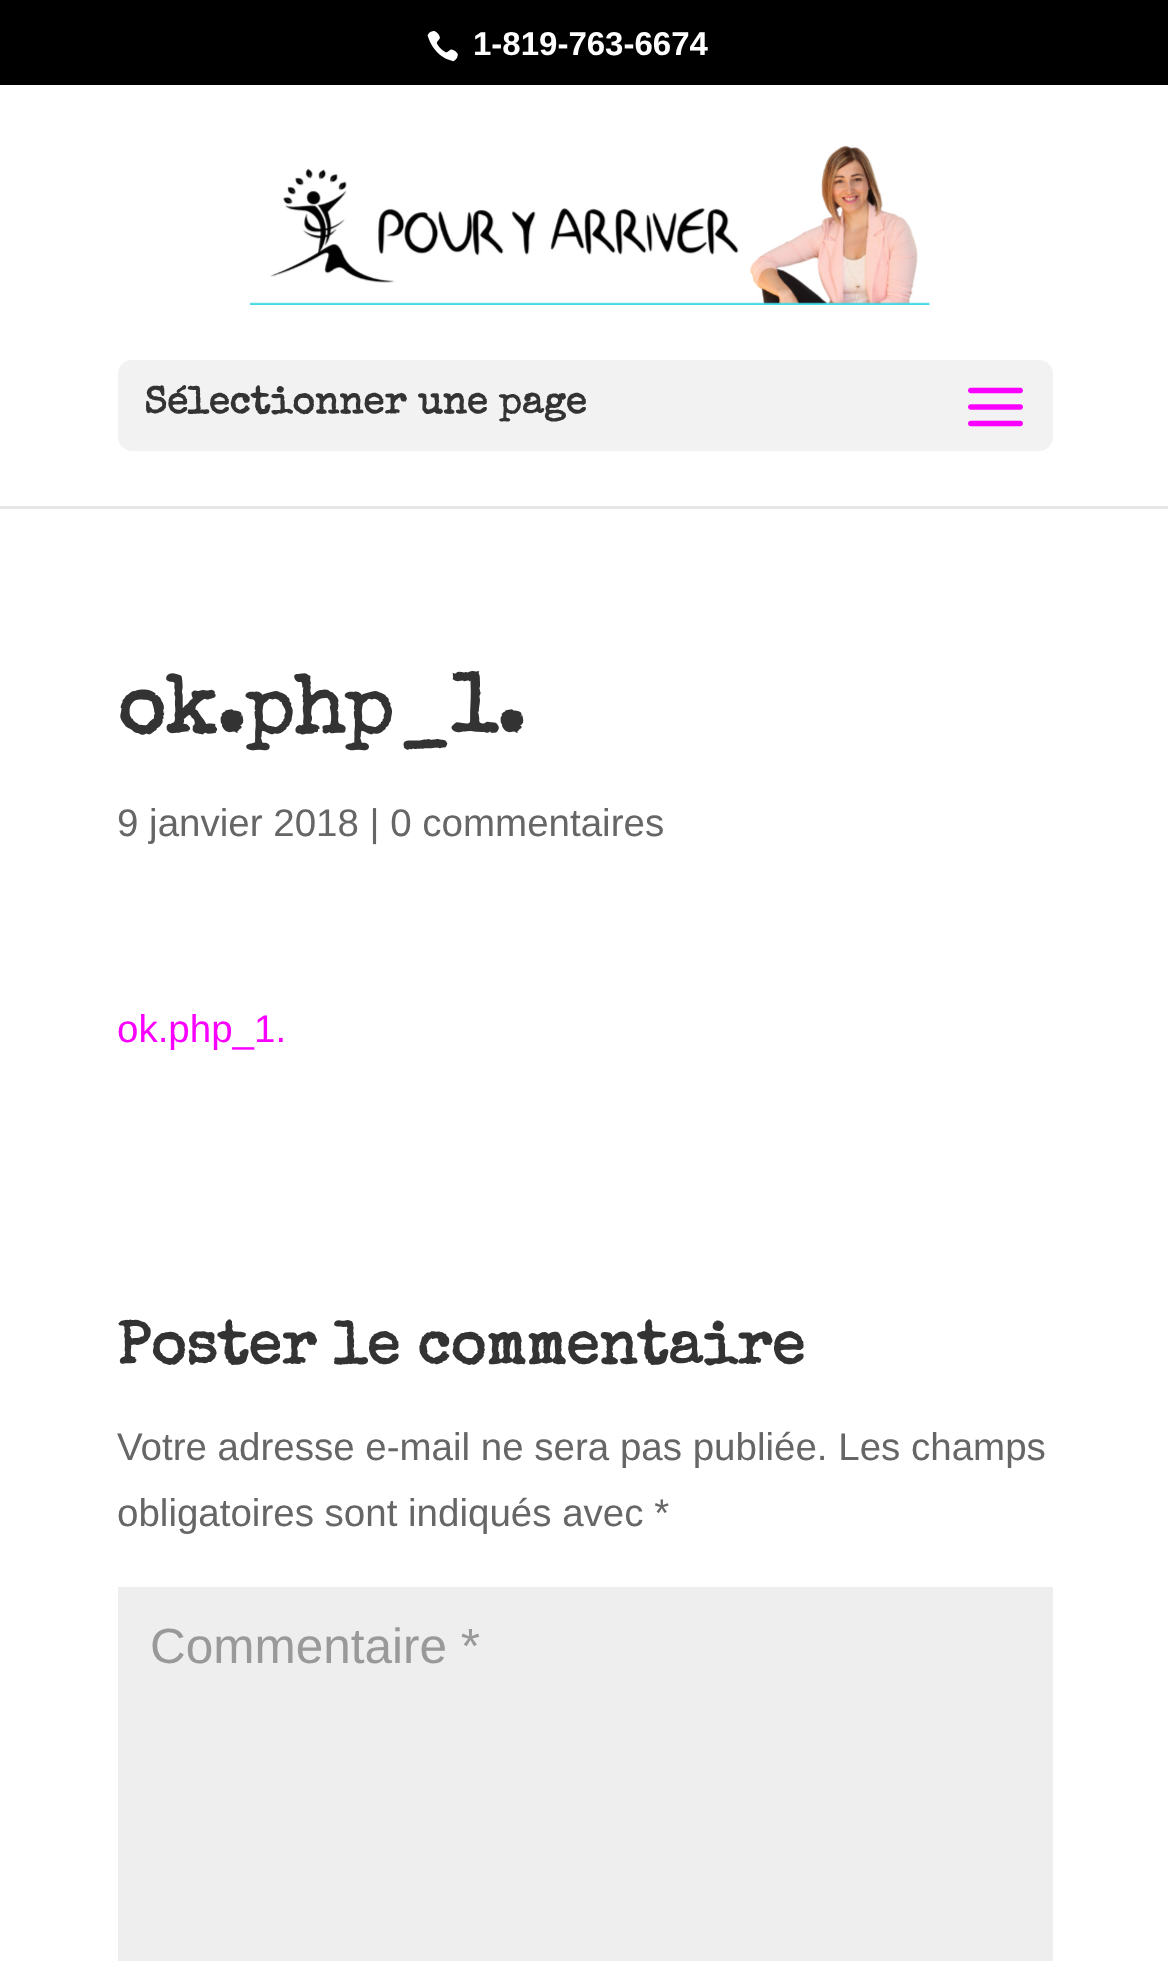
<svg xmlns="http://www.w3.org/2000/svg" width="1168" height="1961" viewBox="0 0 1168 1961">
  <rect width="100%" height="100%" fill="#ffffff"/>
  <rect x="0" y="0" width="1168" height="85" fill="#000000"/>
  <image x="427" y="31" width="31" height="31" href="img1.png"/>
  <text x="473" y="55" font-family="Liberation Sans" font-size="33" font-weight="bold" fill="#ffffff">1-819-763-6674</text>
  <path d="M0 506V509H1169V88V506Z" fill="#e6e6e6"/>
  <image x="250" y="145" width="680" height="160" href="img2.png"/>
  <rect x="118" y="360" width="935" height="91" rx="14" fill="#f2f2f2"/>
  <text x="144" y="413" font-family="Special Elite" font-size="38.5" font-weight="bold" fill="#333333">Sélectionner une page</text>
  <image x="968" y="387" width="55" height="40" href="img3.png"/>
  <text x="117" y="732" font-family="Special Elite" font-size="82.5" font-weight="bold" fill="#333333">ok.php_1.</text>
  <text x="117" y="836" font-family="Liberation Sans" font-size="38.5" fill="#666666">9 janvier 2018 | 0 commentaires</text>
  <text x="117" y="1042" font-family="Liberation Sans" font-size="38.5" fill="#fa00ff">ok.php_1.</text>
  <text x="117" y="1363" font-family="Special Elite" font-size="60.5" font-weight="bold" fill="#333333">Poster le commentaire</text>
  <text x="117" y="1460" font-family="Liberation Sans" font-size="38.5" fill="#666666">Votre adresse e-mail ne sera pas publiée. Les champs</text>
  <text x="117" y="1526" font-family="Liberation Sans" font-size="38.5" fill="#666666">obligatoires sont indiqués avec *</text>
  <rect x="118" y="1587" width="935" height="374" fill="#eeeeee"/>
  <text x="150" y="1663" font-family="Liberation Sans" font-size="49.5" fill="#999999">Commentaire *</text>
</svg>
